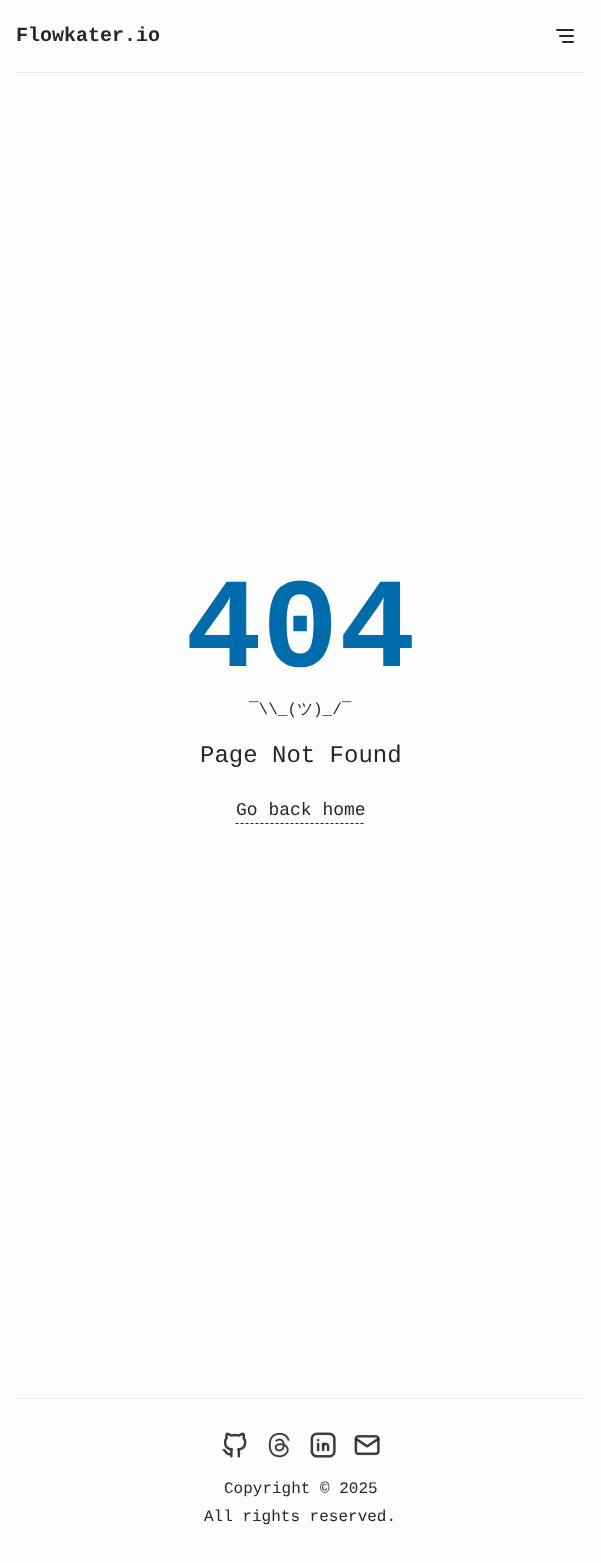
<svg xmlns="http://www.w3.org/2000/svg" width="601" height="1563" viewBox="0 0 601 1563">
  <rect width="100%" height="100%" fill="#fdfdfd"/>
  <text x="16" y="41" font-family="Liberation Mono" font-size="20" font-weight="bold" fill="#282728">Flowkater.io</text>
  <image x="556" y="29" width="18" height="14" href="img1.png"/>
  <rect x="16" y="72" width="569" height="1" fill="#ece9e9"/>
  <text x="185" y="666" font-family="Liberation Mono" font-size="128" font-weight="bold" fill="#006cac">404</text>
  <text x="249" y="714" font-family="Liberation Mono" font-size="16" fill="#282728">¯\\_(</text>
  <text x="297" y="714" font-family="WenQuanYi Zen Hei" font-size="16" font-weight="500" fill="#282728">ツ</text>
  <text x="313" y="714" font-family="Liberation Mono" font-size="16" fill="#282728">)_/¯</text>
  <text x="200" y="762" font-family="Liberation Mono" font-size="24" fill="#282728">Page Not Found</text>
  <text x="236" y="815" font-family="Liberation Mono" font-size="18" fill="#282728">Go back home</text>
  <path d="M235.5 823.5H365.5" fill="none" stroke="#282728" stroke-dasharray="3 2"/>
  <rect x="16" y="1398" width="569" height="1" fill="#ece9e9"/>
  <image x="222" y="1432" width="25" height="26" href="img2.png"/>
  <image x="268" y="1432" width="22" height="26" href="img3.png"/>
  <image x="310" y="1432" width="26" height="26" href="img4.png"/>
  <image x="354" y="1435" width="26" height="21" href="img5.png"/>
  <text x="224" y="1493" font-family="Liberation Mono" font-size="16" fill="#282728">Copyright © 2025</text>
  <text x="204" y="1521" font-family="Liberation Mono" font-size="16" fill="#282728">All rights reserved.</text>
</svg>
